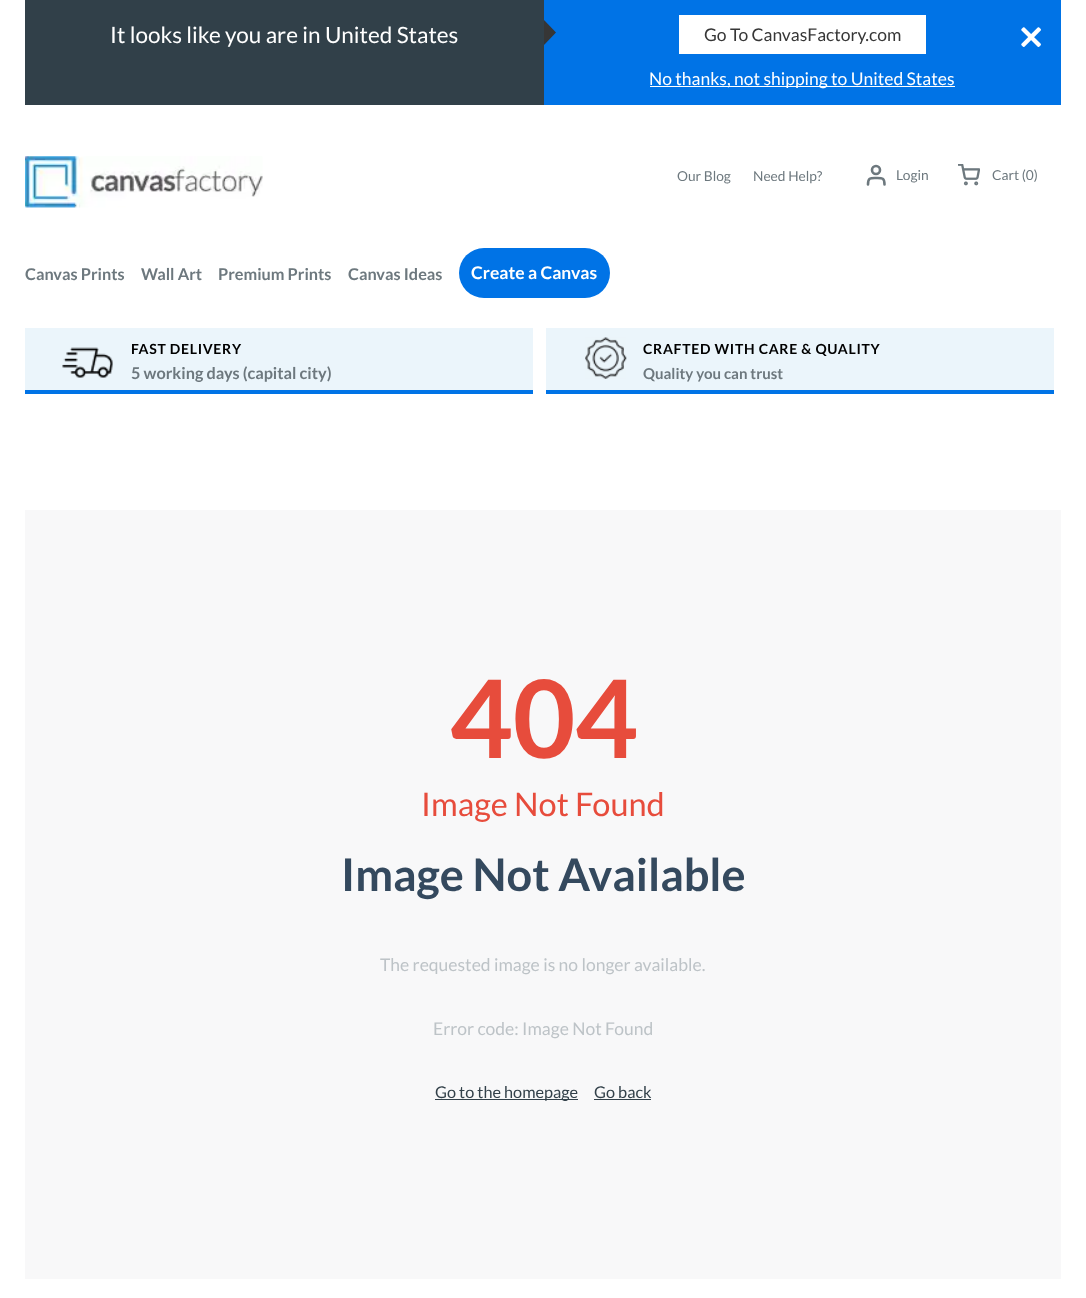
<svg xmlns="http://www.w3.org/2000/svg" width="1086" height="1298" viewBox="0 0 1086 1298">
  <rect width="100%" height="100%" fill="#ffffff"/>
  <rect x="25" y="0" width="519" height="105" fill="#314049"/>
  <text x="110" y="43" font-family="Lato" font-size="22.5" fill="#ffffff">It looks like you are in United States</text>
  <rect x="544" y="0" width="517" height="105" fill="#0073e6"/>
  <path d="M544 45V20L556 32.5Z" fill="#363636"/>
  <rect x="679" y="15" width="247" height="39" fill="#ffffff"/>
  <text x="704" y="41" font-family="Lato" font-size="17.5" fill="#363636">Go To CanvasFactory.com</text>
  <image x="1021" y="27" width="20" height="20" href="img1.png"/>
  <rect x="650" y="86" width="305" height="1" fill="#ffffff"/>
  <text x="649" y="85" font-family="Lato" font-size="17.5" fill="#ffffff">No thanks, not shipping to United States</text>
  <image x="25" y="156" width="238" height="52" href="img2.png"/>
  <text x="677" y="181" font-family="Lato" font-size="13.75" fill="#6d787e">Our Blog</text>
  <text x="753" y="181" font-family="Lato" font-size="13.75" fill="#6d787e">Need Help?</text>
  <path d="M884.5 184.5C884.5 177.5 882 178 876 178C870.5 178 868 177.5 868 184.5" fill="none" stroke="#6d787e" stroke-width="2.6" stroke-linecap="round" stroke-linejoin="round"/>
  <circle cx="876" cy="170" r="4" fill="none" stroke="#6d787e" stroke-width="2.6"/>
  <text x="896" y="180" font-family="Lato" font-size="13.75" fill="#6d787e">Login</text>
  <image x="958" y="164" width="22" height="22" href="img3.png"/>
  <text x="992" y="180" font-family="Lato" font-size="13.75" fill="#6d787e">Cart (0)</text>
  <text x="25" y="280" font-family="Lato" font-size="16.25" font-weight="bold" fill="#6d787e">Canvas Prints</text>
  <text x="141" y="280" font-family="Lato" font-size="16.25" font-weight="bold" fill="#6d787e">Wall Art</text>
  <text x="218" y="280" font-family="Lato" font-size="16.25" font-weight="bold" fill="#6d787e">Premium Prints</text>
  <text x="348" y="280" font-family="Lato" font-size="16.25" font-weight="bold" fill="#6d787e">Canvas Ideas</text>
  <rect x="459" y="248" width="151" height="50" rx="25" fill="#0073e6"/>
  <text x="471" y="279" font-family="Lato" font-size="17.5" font-weight="bold" fill="#ffffff">Create a Canvas</text>
  <rect x="25" y="328" width="508" height="62" fill="#ebf5fb"/>
  <rect x="25" y="390" width="508" height="4" fill="#0073e6"/>
  <image x="62" y="347" width="51" height="31" href="img4.png"/>
  <text x="131" y="354" font-family="Lato" font-size="14" font-weight="bold" letter-spacing="0.7" fill="#000000">FAST DELIVERY</text>
  <text x="131" y="379" font-family="Lato" font-size="16.25" font-weight="bold" fill="#6d787e">5 working days (capital city)</text>
  <rect x="546" y="328" width="508" height="62" fill="#ebf5fb"/>
  <rect x="546" y="390" width="508" height="4" fill="#0073e6"/>
  <image x="585" y="337" width="42" height="42" href="img5.png"/>
  <text x="643" y="354" font-family="Lato" font-size="14" font-weight="bold" letter-spacing="0.7" fill="#000000">CRAFTED WITH CARE &amp; QUALITY</text>
  <text x="643" y="379" font-family="Lato" font-size="15" font-weight="bold" fill="#6d787e">Quality you can trust</text>
  <rect x="25" y="510" width="1036" height="769" fill="#f8f8f9"/>
  <text x="450" y="758" font-family="Lato" font-size="108" font-weight="bold" fill="#e74c3c">404</text>
  <text x="421" y="816" font-family="Lato" font-size="32.5" fill="#e74c3c">Image Not Found</text>
  <text x="341" y="891" font-family="Lato" font-size="45" font-weight="bold" fill="#34495e">Image Not Available</text>
  <text x="380" y="971" font-family="Lato" font-size="17.5" fill="#bdc3c7">The requested image is no longer available.</text>
  <text x="433" y="1035" font-family="Lato" font-size="17.5" fill="#bdc3c7">Error code: Image Not Found</text>
  <rect x="435" y="1099" width="143" height="1" fill="#33414a"/>
  <text x="435" y="1098" font-family="Lato" font-size="16.25" fill="#33414a">Go to the homepage</text>
  <text x="594" y="1098" font-family="Lato" font-size="16.25" fill="#33414a">Go back</text>
  <rect x="594" y="1099" width="57" height="1" fill="#33414a"/>
</svg>
